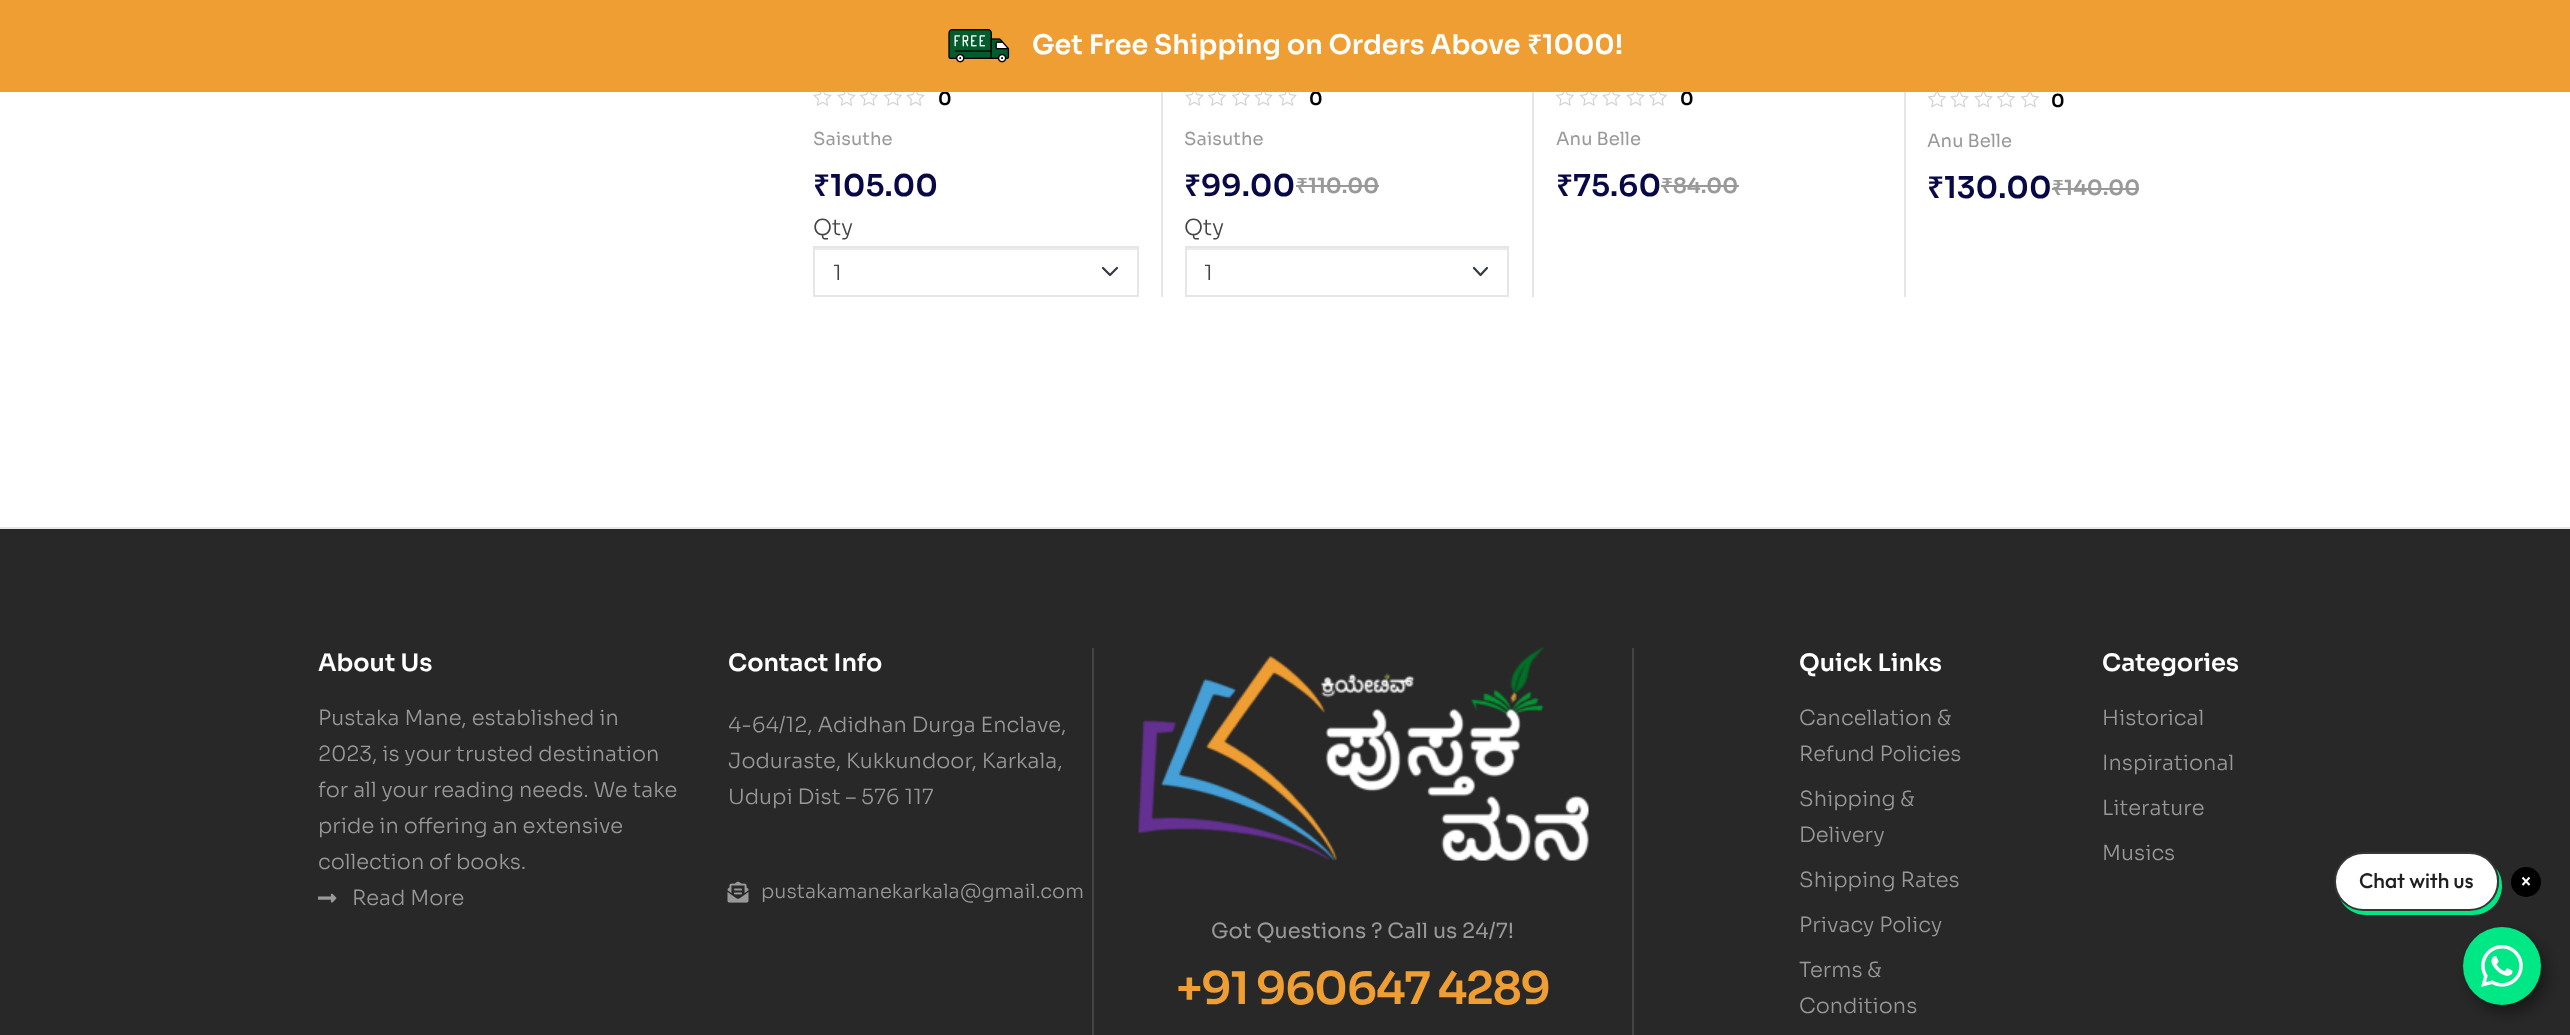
<svg xmlns="http://www.w3.org/2000/svg" width="2570" height="1035" viewBox="0 0 2570 1035">
  <defs>
    <filter id="blur1" x="-50%" y="-200%" width="200%" height="500%"><feGaussianBlur stdDeviation="7.5"/></filter>
  </defs>
  <rect width="100%" height="100%" fill="#ffffff"/>
  <text x="938" y="105" font-family="Sora" font-size="18" font-weight="600" fill="#000000">0</text>
  <text x="1309" y="105" font-family="Sora" font-size="18" font-weight="600" fill="#000000">0</text>
  <text x="1680" y="105" font-family="Sora" font-size="18" font-weight="600" fill="#000000">0</text>
  <rect x="0" y="0" width="2570" height="92" fill="#ef9e34"/>
  <image x="948" y="29" width="62" height="34" href="img1.png"/>
  <text x="1032" y="54" font-family="Sora" font-size="27" font-weight="600" fill="#ffffff">Get Free Shipping on Orders Above</text>
  <text x="1527" y="54" font-family="Noto Sans" font-size="27" font-weight="600" fill="#ffffff">₹</text>
  <text x="1542" y="54" font-family="Sora" font-size="27" font-weight="600" fill="#ffffff">1000!</text>
  <rect x="1161" y="92" width="2" height="205" fill="#e6e6e6"/>
  <image x="813" y="92" width="19" height="14" href="img2.png"/>
  <image x="837" y="92" width="19" height="14" href="img2.png"/>
  <image x="859" y="92" width="19" height="14" href="img3.png"/>
  <image x="883" y="92" width="19" height="14" href="img3.png"/>
  <image x="906" y="92" width="19" height="14" href="img2.png"/>
  <text x="813" y="145" font-family="Sora" font-size="18" fill="#999999">Saisuthe</text>
  <text x="813" y="196" font-family="Noto Sans" font-size="30" font-weight="600" fill="#080846">₹</text>
  <text x="830" y="196" font-family="Sora" font-size="30" font-weight="600" fill="#080846">105.00</text>
  <text x="813" y="235" font-family="Sora" font-size="22" font-weight="300" fill="#444444">Qty</text>
  <path d="M1103 268L1110 275L1117 268" fill="none" stroke="#343a40" stroke-width="2.2" stroke-linecap="round" stroke-linejoin="round"/>
  <rect x="815" y="248" width="322" height="2" fill="#ebebeb"/>
  <rect x="814" y="247" width="324" height="49" fill="none" stroke="#e6e6e6" stroke-width="2"/>
  <text x="833" y="280" font-family="Sora" font-size="21" font-weight="300" fill="#444444">1</text>
  <rect x="1532" y="92" width="2" height="205" fill="#e6e6e6"/>
  <image x="1185" y="92" width="19" height="14" href="img2.png"/>
  <image x="1207" y="92" width="19" height="14" href="img3.png"/>
  <image x="1231" y="92" width="19" height="14" href="img3.png"/>
  <image x="1254" y="92" width="19" height="14" href="img2.png"/>
  <image x="1278" y="92" width="19" height="14" href="img2.png"/>
  <text x="1184" y="145" font-family="Sora" font-size="18" fill="#999999">Saisuthe</text>
  <text x="1184" y="196" font-family="Noto Sans" font-size="30" font-weight="600" fill="#080846">₹</text>
  <text x="1201" y="196" font-family="Sora" font-size="30" font-weight="600" fill="#080846">99.00</text>
  <text x="1296" y="193" font-family="Noto Sans" font-size="21" font-weight="600" fill="#999999">₹</text>
  <rect x="1296" y="185" width="12" height="2" fill="#999999"/>
  <text x="1308" y="193" font-family="Sora" font-size="21" font-weight="600" fill="#999999">110.00</text>
  <rect x="1308" y="185" width="71" height="2" fill="#999999"/>
  <text x="1184" y="235" font-family="Sora" font-size="22" font-weight="300" fill="#444444">Qty</text>
  <path d="M1474 268L1480.5 275L1487 268" fill="none" stroke="#343a40" stroke-width="2.2" stroke-linecap="round" stroke-linejoin="round"/>
  <rect x="1187" y="248" width="321" height="2" fill="#ebebeb"/>
  <rect x="1186" y="247" width="322" height="49" fill="none" stroke="#e6e6e6" stroke-width="2"/>
  <text x="1204" y="280" font-family="Sora" font-size="21" font-weight="300" fill="#444444">1</text>
  <rect x="1904" y="92" width="2" height="205" fill="#e6e6e6"/>
  <image x="1556" y="92" width="18" height="14" href="img4.png"/>
  <image x="1579" y="92" width="19" height="14" href="img3.png"/>
  <image x="1602" y="92" width="19" height="14" href="img2.png"/>
  <image x="1626" y="92" width="19" height="14" href="img2.png"/>
  <image x="1648" y="92" width="19" height="14" href="img3.png"/>
  <text x="1556" y="145" font-family="Sora" font-size="18" fill="#999999">Anu Belle</text>
  <text x="1556" y="196" font-family="Noto Sans" font-size="30" font-weight="600" fill="#080846">₹</text>
  <text x="1573" y="196" font-family="Sora" font-size="30" font-weight="600" fill="#080846">75.60</text>
  <text x="1661" y="193" font-family="Noto Sans" font-size="21" font-weight="600" fill="#999999">₹</text>
  <rect x="1661" y="185" width="12" height="2" fill="#999999"/>
  <text x="1673" y="193" font-family="Sora" font-size="21" font-weight="600" fill="#999999">84.00</text>
  <rect x="1673" y="185" width="66" height="2" fill="#999999"/>
  <image x="1928" y="92" width="19" height="16" href="img5.png"/>
  <image x="1950" y="92" width="19" height="16" href="img6.png"/>
  <image x="1974" y="92" width="19" height="16" href="img6.png"/>
  <image x="1996" y="92" width="20" height="16" href="img7.png"/>
  <image x="2020" y="92" width="20" height="16" href="img7.png"/>
  <text x="2051" y="107" font-family="Sora" font-size="18" font-weight="600" fill="#000000">0</text>
  <text x="1927" y="147" font-family="Sora" font-size="18" fill="#999999">Anu Belle</text>
  <text x="1927" y="198" font-family="Noto Sans" font-size="30" font-weight="600" fill="#080846">₹</text>
  <text x="1944" y="198" font-family="Sora" font-size="30" font-weight="600" fill="#080846">130.00</text>
  <text x="2052" y="195" font-family="Noto Sans" font-size="21" font-weight="600" fill="#999999">₹</text>
  <rect x="2052" y="188" width="12" height="2" fill="#999999"/>
  <text x="2064" y="195" font-family="Sora" font-size="21" font-weight="600" fill="#999999">140.00</text>
  <rect x="2064" y="188" width="75" height="2" fill="#999999"/>
  <rect x="0" y="529" width="2570" height="506" fill="#282828"/>
  <rect x="0" y="527" width="2570" height="2" fill="#e6e6e6"/>
  <text x="318" y="671" font-family="Sora" font-size="24" font-weight="600" fill="#ffffff">About Us</text>
  <text x="318" y="725" font-family="Sora" font-size="21" font-weight="300" fill="#999999">Pustaka Mane, established in</text>
  <text x="318" y="761" font-family="Sora" font-size="21" font-weight="300" fill="#999999">2023, is your trusted destination</text>
  <text x="318" y="797" font-family="Sora" font-size="21" font-weight="300" fill="#999999">for all your reading needs. We take</text>
  <text x="318" y="833" font-family="Sora" font-size="21" font-weight="300" fill="#999999">pride in offering an extensive</text>
  <text x="318" y="869" font-family="Sora" font-size="21" font-weight="300" fill="#999999">collection of books.</text>
  <image x="318" y="893" width="19" height="10" href="img8.png"/>
  <text x="352" y="905" font-family="Sora" font-size="21" font-weight="300" fill="#999999">Read More</text>
  <text x="728" y="671" font-family="Sora" font-size="24" font-weight="600" fill="#ffffff">Contact Info</text>
  <text x="728" y="732" font-family="Sora" font-size="21" font-weight="300" fill="#999999">4-64/12, Adidhan Durga Enclave,</text>
  <text x="728" y="768" font-family="Sora" font-size="21" font-weight="300" fill="#999999">Joduraste, Kukkundoor, Karkala,</text>
  <text x="728" y="804" font-family="Sora" font-size="21" font-weight="300" fill="#999999">Udupi Dist – 576 117</text>
  <image x="727" y="881" width="22" height="22" href="img9.png"/>
  <text x="761" y="898" font-family="Sora" font-size="19.5" font-weight="300" fill="#999999">pustakamanekarkala@gmail.com</text>
  <text x="1799" y="671" font-family="Sora" font-size="24" font-weight="600" fill="#ffffff">Quick Links</text>
  <text x="1799" y="725" font-family="Sora" font-size="21" font-weight="300" fill="#999999">Cancellation &amp;</text>
  <text x="1799" y="761" font-family="Sora" font-size="21" font-weight="300" fill="#999999">Refund Policies</text>
  <text x="1799" y="806" font-family="Sora" font-size="21" font-weight="300" fill="#999999">Shipping &amp;</text>
  <text x="1799" y="842" font-family="Sora" font-size="21" font-weight="300" fill="#999999">Delivery</text>
  <text x="1799" y="887" font-family="Sora" font-size="21" font-weight="300" fill="#999999">Shipping Rates</text>
  <text x="1799" y="932" font-family="Sora" font-size="21" font-weight="300" fill="#999999">Privacy Policy</text>
  <text x="1799" y="977" font-family="Sora" font-size="21" font-weight="300" fill="#999999">Terms &amp;</text>
  <text x="1799" y="1013" font-family="Sora" font-size="21" font-weight="300" fill="#999999">Conditions</text>
  <text x="2102" y="671" font-family="Sora" font-size="24" font-weight="600" fill="#ffffff">Categories</text>
  <text x="2102" y="725" font-family="Sora" font-size="21" font-weight="300" fill="#999999">Historical</text>
  <text x="2102" y="770" font-family="Sora" font-size="21" font-weight="300" fill="#999999">Inspirational</text>
  <text x="2102" y="815" font-family="Sora" font-size="21" font-weight="300" fill="#999999">Literature</text>
  <text x="2102" y="860" font-family="Sora" font-size="21" font-weight="300" fill="#999999">Musics</text>
  <rect x="1632" y="648" width="2" height="387" fill="#444444"/>
  <rect x="1092" y="648" width="2" height="387" fill="#444444"/>
  <image x="1138" y="647" width="451" height="214" href="img10.png"/>
  <text x="1211" y="938" font-family="Sora" font-size="21" fill="#999999">Got Questions ? Call us 24/7!</text>
  <text x="1176" y="1004" font-family="Sora" font-size="45" font-weight="600" letter-spacing="-1.5" fill="#ef9e34">+91 960647 4289</text>
  <rect x="2469" y="935" width="78" height="78" rx="39" fill="#000000" fill-opacity="0.4" filter="url(#blur1)"/>
  <path d="M2340 899C2345 909 2355 915 2366 915H2473C2489 915 2502 902 2502 886C2502 879 2500 873 2496 868C2498 872 2499 877 2499 881C2499 897 2486 910 2470 910H2363C2354 910 2346 906 2340 899Z" fill="#00e785"/>
  <rect x="2335" y="853" width="163" height="57" rx="28.5" fill="#ffffff" stroke="#363636" stroke-width="2"/>
  <text x="2359" y="888" font-family="Outfit" font-size="21" font-weight="500" fill="#202020">Chat with us</text>
  <circle cx="2526" cy="882" r="15" fill="#000000"/>
  <path d="M2522.5 877.5L2529.5 885M2522.5 885L2529.5 877.5" fill="none" stroke="#ffffff" stroke-width="2"/>
  <circle cx="2502" cy="966" r="39" fill="#00e785"/>
  <image x="2481" y="945" width="42" height="42" href="img11.png"/>
</svg>
